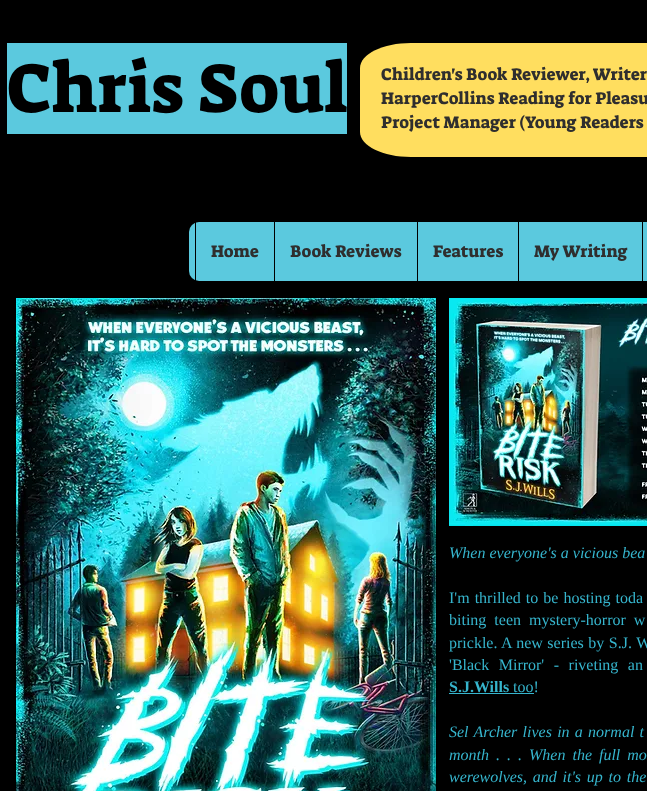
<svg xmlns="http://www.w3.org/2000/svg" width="647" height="791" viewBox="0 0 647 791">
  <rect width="100%" height="100%" fill="#000000"/>
  <rect x="7" y="43" width="340" height="91" fill="#5bc9de"/>
  <text x="7" y="112" font-family="Suez One" font-size="70" fill="#000000">Chris Soul</text>
  <path d="M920 157H411C383 157 360 146 360 132V68C360 54 383 43 411 43H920C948 43 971 54 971 68V132C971 146 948 157 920 157Z" fill="#ffde5f"/>
  <text x="381" y="80" font-family="Suez One" font-size="17" fill="#2f2e2e">Children's Book Reviewer, Writer</text>
  <text x="381" y="104" font-family="Suez One" font-size="17" fill="#2f2e2e">HarperCollins Reading for Pleasu</text>
  <text x="381" y="128" font-family="Suez One" font-size="17" fill="#2f2e2e">Project Manager (Young Readers</text>
  <rect x="189" y="222" width="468" height="59" rx="10" fill="#5bc9de"/>
  <rect x="195" y="222" width="1" height="59" fill="#000000"/>
  <text x="211" y="257" font-family="Suez One" font-size="17" fill="#2f2e2e">Home</text>
  <rect x="274" y="222" width="1" height="59" fill="#000000"/>
  <text x="290" y="257" font-family="Suez One" font-size="17" fill="#2f2e2e">Book Reviews</text>
  <rect x="417" y="222" width="1" height="59" fill="#000000"/>
  <text x="433" y="257" font-family="Suez One" font-size="17" fill="#2f2e2e">Features</text>
  <rect x="518" y="222" width="1" height="59" fill="#000000"/>
  <text x="534" y="257" font-family="Suez One" font-size="17" fill="#2f2e2e">My Writing</text>
  <rect x="642" y="222" width="1" height="59" fill="#000000"/>
  <image x="16" y="298" width="420" height="493" href="img1.png"/>
  <image x="449" y="298" width="198" height="228" href="img2.png"/>
  <text x="449" y="558" font-family="Liberation Serif" font-size="16" font-style="italic" fill="#36b5cd">When everyone's a vicious bea</text>
  <text x="449" y="603" word-spacing="1" font-family="Liberation Serif" font-size="16" fill="#36b5cd">I'm thrilled to be hosting toda</text>
  <text x="449" y="625" word-spacing="4" font-family="Liberation Serif" font-size="16" fill="#36b5cd">biting teen mystery-horror w</text>
  <text x="449" y="648" word-spacing="0.5" font-family="Liberation Serif" font-size="16" fill="#36b5cd">prickle. A new series by S.J. W</text>
  <text x="449" y="670" word-spacing="5.5" font-family="Liberation Serif" font-size="16" fill="#36b5cd">'Black Mirror' - riveting an</text>
  <text x="449" y="692" font-family="Liberation Serif" font-size="16" font-weight="bold" fill="#36b5cd">S.J.Wills</text>
  <text x="513" y="692" font-family="Liberation Serif" font-size="16" fill="#36b5cd">too!</text>
  <rect x="449" y="693" width="85" height="1" fill="#36b5cd"/>
  <text x="449" y="737" word-spacing="1.25" font-family="Liberation Serif" font-size="16" font-style="italic" fill="#36b5cd">Sel Archer lives in a normal t</text>
  <text x="449" y="760" word-spacing="3" font-family="Liberation Serif" font-size="16" font-style="italic" fill="#36b5cd">month . . . When the full mo</text>
  <text x="449" y="782" word-spacing="1.75" font-family="Liberation Serif" font-size="16" font-style="italic" fill="#36b5cd">werewolves, and it's up to the</text>
</svg>
